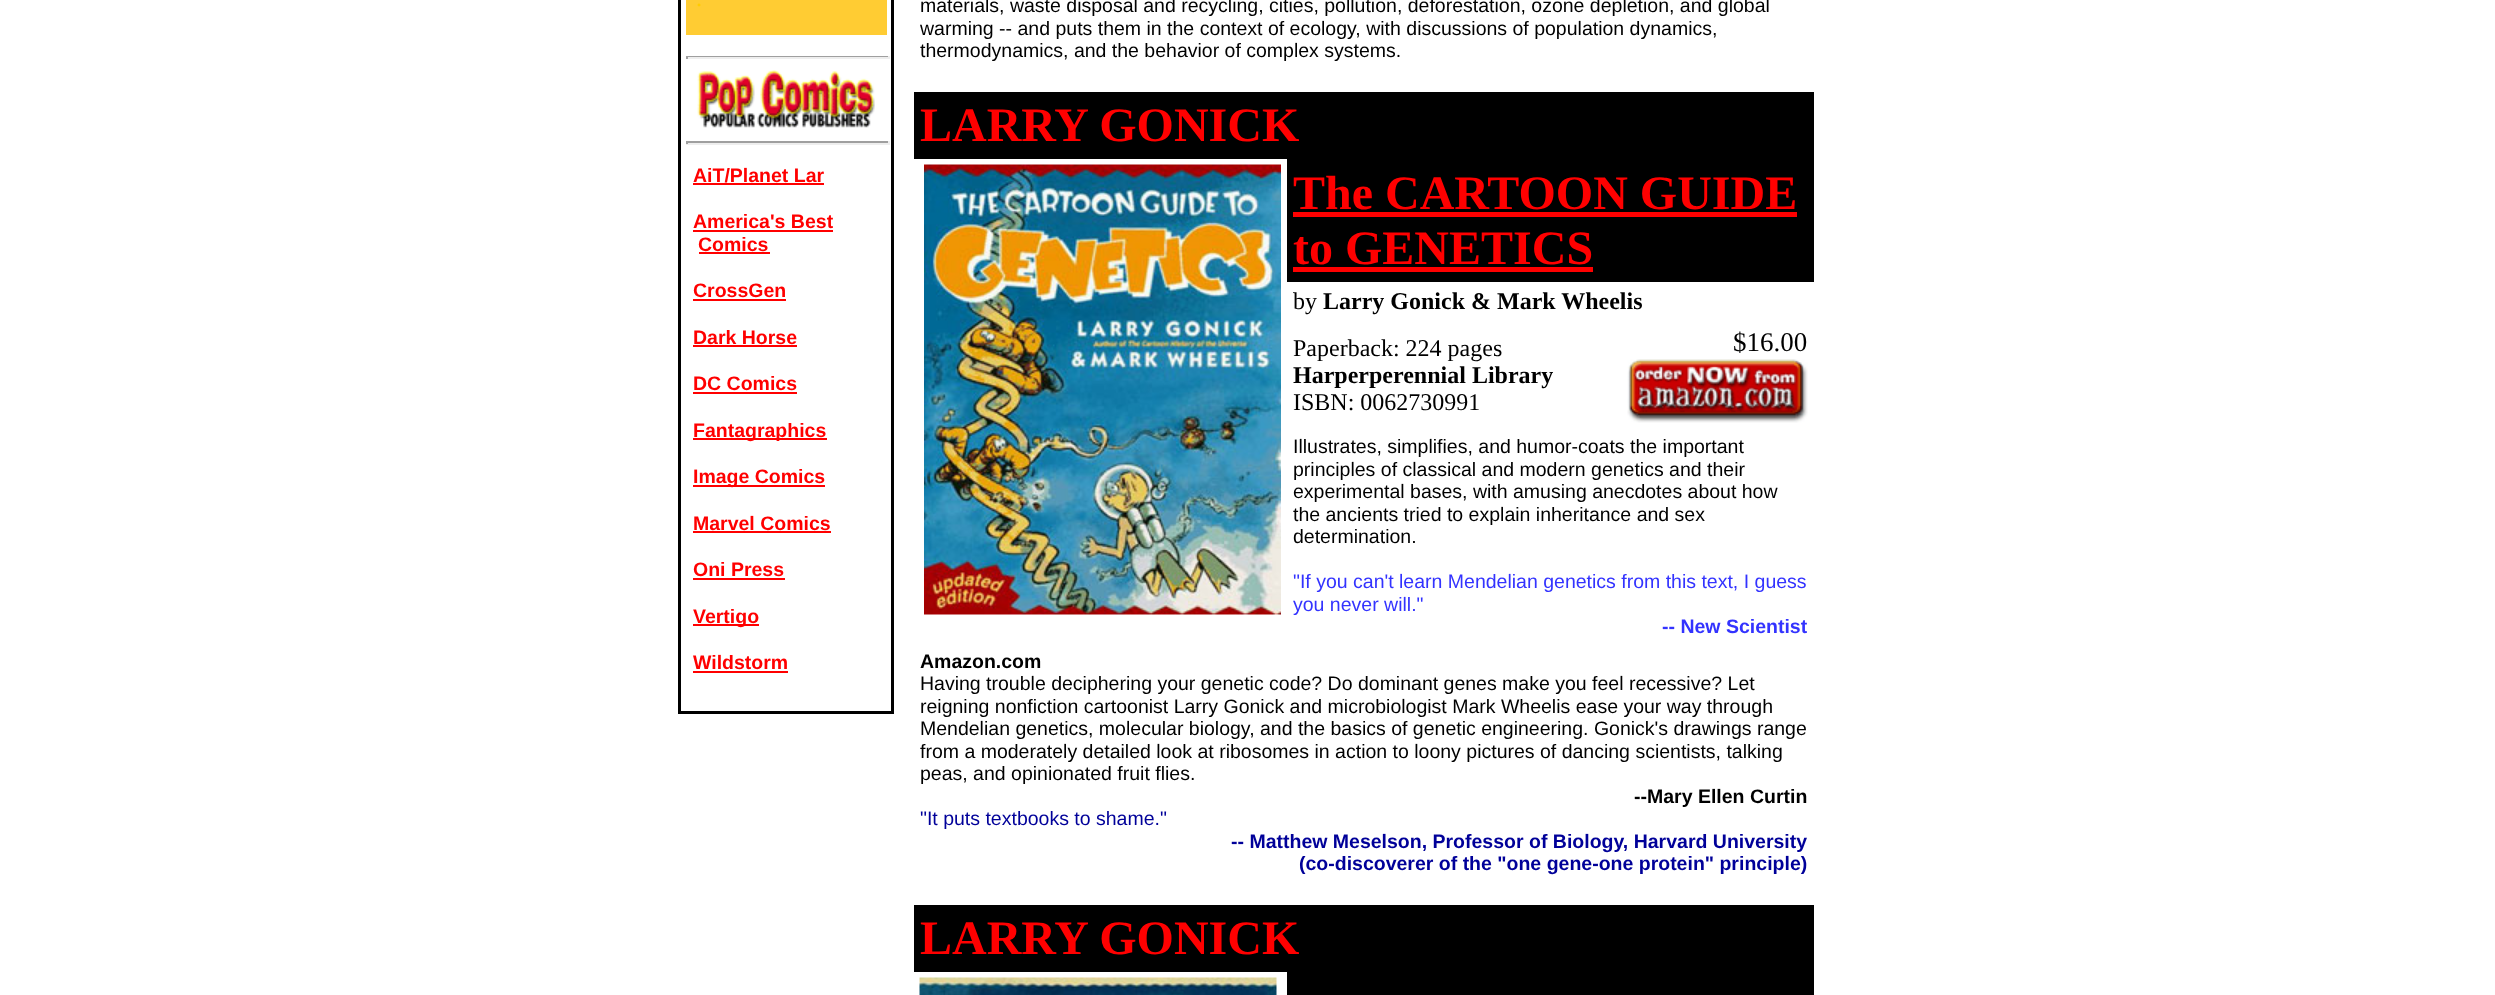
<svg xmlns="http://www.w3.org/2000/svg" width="2495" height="995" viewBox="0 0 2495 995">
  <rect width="100%" height="100%" fill="#ffffff"/>
  <rect x="678" y="0" width="216" height="714" fill="#000000"/>
  <rect x="681" y="0" width="210" height="711" fill="#ffffff"/>
  <rect x="686" y="0" width="201" height="35" fill="#ffcc33"/>
  <text x="696" y="6" font-family="Liberation Serif" font-size="24" fill="#ffcc00">.</text>
  <rect x="686" y="56" width="204" height="1" fill="#9f9f9f"/>
  <rect x="888" y="56" width="2" height="3" fill="#eeeeee"/>
  <rect x="686" y="57" width="204" height="2" fill="#eeeeee"/>
  <rect x="686" y="56" width="2" height="3" fill="#9f9f9f"/>
  <image x="697" y="70" width="178" height="58" href="img1.png"/>
  <rect x="686" y="141" width="204" height="2" fill="#9f9f9f"/>
  <rect x="888" y="141" width="2" height="3" fill="#eeeeee"/>
  <rect x="686" y="143" width="204" height="2" fill="#eeeeee"/>
  <rect x="686" y="141" width="2" height="3" fill="#9f9f9f"/>
  <text x="693" y="182" font-family="Liberation Sans" font-size="19.5" font-weight="bold" fill="#ff0000">AiT/Planet Lar</text>
  <rect x="693" y="183" width="131" height="2" fill="#ff0000"/>
  <text x="693" y="228" font-family="Liberation Sans" font-size="19.5" font-weight="bold" fill="#ff0000">America's Best</text>
  <rect x="693" y="230" width="140" height="2" fill="#ff0000"/>
  <text x="698" y="251" font-family="Liberation Sans" font-size="19.5" font-weight="bold" fill="#ff0000">Comics</text>
  <rect x="699" y="252" width="71" height="2" fill="#ff0000"/>
  <text x="693" y="297" font-family="Liberation Sans" font-size="19.5" font-weight="bold" fill="#ff0000">CrossGen</text>
  <rect x="693" y="299" width="93" height="2" fill="#ff0000"/>
  <text x="693" y="344" font-family="Liberation Sans" font-size="19.5" font-weight="bold" fill="#ff0000">Dark Horse</text>
  <rect x="693" y="345" width="104" height="2" fill="#ff0000"/>
  <text x="693" y="390" font-family="Liberation Sans" font-size="19.5" font-weight="bold" fill="#ff0000">DC Comics</text>
  <rect x="693" y="392" width="104" height="2" fill="#ff0000"/>
  <rect x="693" y="438" width="134" height="2" fill="#ff0000"/>
  <text x="693" y="437" font-family="Liberation Sans" font-size="19.5" font-weight="bold" fill="#ff0000">Fantagraphics</text>
  <rect x="693" y="485" width="132" height="2" fill="#ff0000"/>
  <text x="693" y="483" font-family="Liberation Sans" font-size="19.5" font-weight="bold" fill="#ff0000">Image Comics</text>
  <text x="693" y="530" font-family="Liberation Sans" font-size="19.5" font-weight="bold" fill="#ff0000">Marvel Comics</text>
  <rect x="693" y="531" width="138" height="2" fill="#ff0000"/>
  <text x="693" y="576" font-family="Liberation Sans" font-size="19.5" font-weight="bold" fill="#ff0000">Oni Press</text>
  <rect x="693" y="578" width="92" height="2" fill="#ff0000"/>
  <rect x="693" y="624" width="66" height="2" fill="#ff0000"/>
  <text x="693" y="623" font-family="Liberation Sans" font-size="19.5" font-weight="bold" fill="#ff0000">Vertigo</text>
  <text x="693" y="669" font-family="Liberation Sans" font-size="19.5" font-weight="bold" fill="#ff0000">Wildstorm</text>
  <rect x="693" y="671" width="95" height="2" fill="#ff0000"/>
  <text x="920" y="12" font-family="Liberation Sans" font-size="19.5" fill="#000000">materials, waste disposal and recycling, cities, pollution, deforestation, ozone depletion, and global</text>
  <text x="920" y="35" font-family="Liberation Sans" font-size="19.5" fill="#000000">warming -- and puts them in the context of ecology, with discussions of population dynamics,</text>
  <text x="920" y="57" font-family="Liberation Sans" font-size="19.5" fill="#000000">thermodynamics, and the behavior of complex systems.</text>
  <rect x="914" y="92" width="900" height="67" fill="#000000"/>
  <text x="920" y="141" font-family="Liberation Serif" font-size="48" font-weight="bold" fill="#ff0000">LARRY GONICK</text>
  <image x="924" y="164" width="357" height="451" href="img2.png"/>
  <rect x="1287" y="159" width="527" height="123" fill="#000000"/>
  <text x="1293" y="209" font-family="Liberation Serif" font-size="48" font-weight="bold" fill="#ff0000">The CARTOON GUIDE</text>
  <rect x="1293" y="212" width="504" height="5" fill="#ff0000"/>
  <text x="1293" y="264" font-family="Liberation Serif" font-size="48" font-weight="bold" fill="#ff0000">to GENETICS</text>
  <rect x="1293" y="267" width="300" height="5" fill="#ff0000"/>
  <text x="1293" y="309" font-family="Liberation Serif" font-size="24" fill="#000000">by</text>
  <text x="1323" y="309" font-family="Liberation Serif" font-size="24" font-weight="bold" fill="#000000">Larry Gonick &amp; Mark Wheelis</text>
  <text x="1293" y="356" font-family="Liberation Serif" font-size="24" fill="#000000">Paperback: 224 pages</text>
  <text x="1293" y="383" font-family="Liberation Serif" font-size="24" font-weight="bold" fill="#000000">Harperperennial Library</text>
  <text x="1293" y="410" font-family="Liberation Serif" font-size="24" fill="#000000">ISBN: 0062730991</text>
  <text x="1733" y="351" font-family="Liberation Serif" font-size="27" fill="#000000">$16.00</text>
  <image x="1627" y="359" width="181" height="64" href="img3.png"/>
  <text x="1293" y="453" font-family="Liberation Sans" font-size="19.5" fill="#000000">Illustrates, simplifies, and humor-coats the important</text>
  <text x="1293" y="476" font-family="Liberation Sans" font-size="19.5" fill="#000000">principles of classical and modern genetics and their</text>
  <text x="1293" y="498" font-family="Liberation Sans" font-size="19.5" fill="#000000">experimental bases, with amusing anecdotes about how</text>
  <text x="1293" y="521" font-family="Liberation Sans" font-size="19.5" fill="#000000">the ancients tried to explain inheritance and sex</text>
  <text x="1293" y="543" font-family="Liberation Sans" font-size="19.5" fill="#000000">determination.</text>
  <text x="1293" y="588" font-family="Liberation Sans" font-size="19.5" fill="#3333ff">"If you can't learn Mendelian genetics from this text, I guess</text>
  <text x="1293" y="611" font-family="Liberation Sans" font-size="19.5" fill="#3333ff">you never will."</text>
  <text x="1662" y="633" font-family="Liberation Sans" font-size="19.5" font-weight="bold" fill="#3333ff">-- New Scientist</text>
  <text x="920" y="668" font-family="Liberation Sans" font-size="19.5" font-weight="bold" fill="#000000">Amazon.com</text>
  <text x="920" y="690" font-family="Liberation Sans" font-size="19.5" fill="#000000">Having trouble deciphering your genetic code? Do dominant genes make you feel recessive? Let</text>
  <text x="920" y="713" font-family="Liberation Sans" font-size="19.5" fill="#000000">reigning nonfiction cartoonist Larry Gonick and microbiologist Mark Wheelis ease your way through</text>
  <text x="920" y="735" font-family="Liberation Sans" font-size="19.5" fill="#000000">Mendelian genetics, molecular biology, and the basics of genetic engineering. Gonick's drawings range</text>
  <text x="920" y="758" font-family="Liberation Sans" font-size="19.5" fill="#000000">from a moderately detailed look at ribosomes in action to loony pictures of dancing scientists, talking</text>
  <text x="920" y="780" font-family="Liberation Sans" font-size="19.5" fill="#000000">peas, and opinionated fruit flies.</text>
  <text x="1634" y="803" font-family="Liberation Sans" font-size="19.5" font-weight="bold" fill="#000000">--Mary Ellen Curtin</text>
  <text x="920" y="825" font-family="Liberation Sans" font-size="19.5" fill="#000099">"It puts textbooks to shame."</text>
  <text x="1231" y="848" font-family="Liberation Sans" font-size="19.5" font-weight="bold" fill="#000099">-- Matthew Meselson, Professor of Biology, Harvard University</text>
  <text x="1299" y="870" font-family="Liberation Sans" font-size="19.5" font-weight="bold" fill="#000099">(co-discoverer of the "one gene-one protein" principle)</text>
  <rect x="914" y="905" width="900" height="67" fill="#000000"/>
  <text x="920" y="954" font-family="Liberation Serif" font-size="48" font-weight="bold" fill="#ff0000">LARRY GONICK</text>
  <image x="919" y="977" width="358" height="18" href="img4.png"/>
  <rect x="1287" y="972" width="527" height="23" fill="#000000"/>
</svg>
